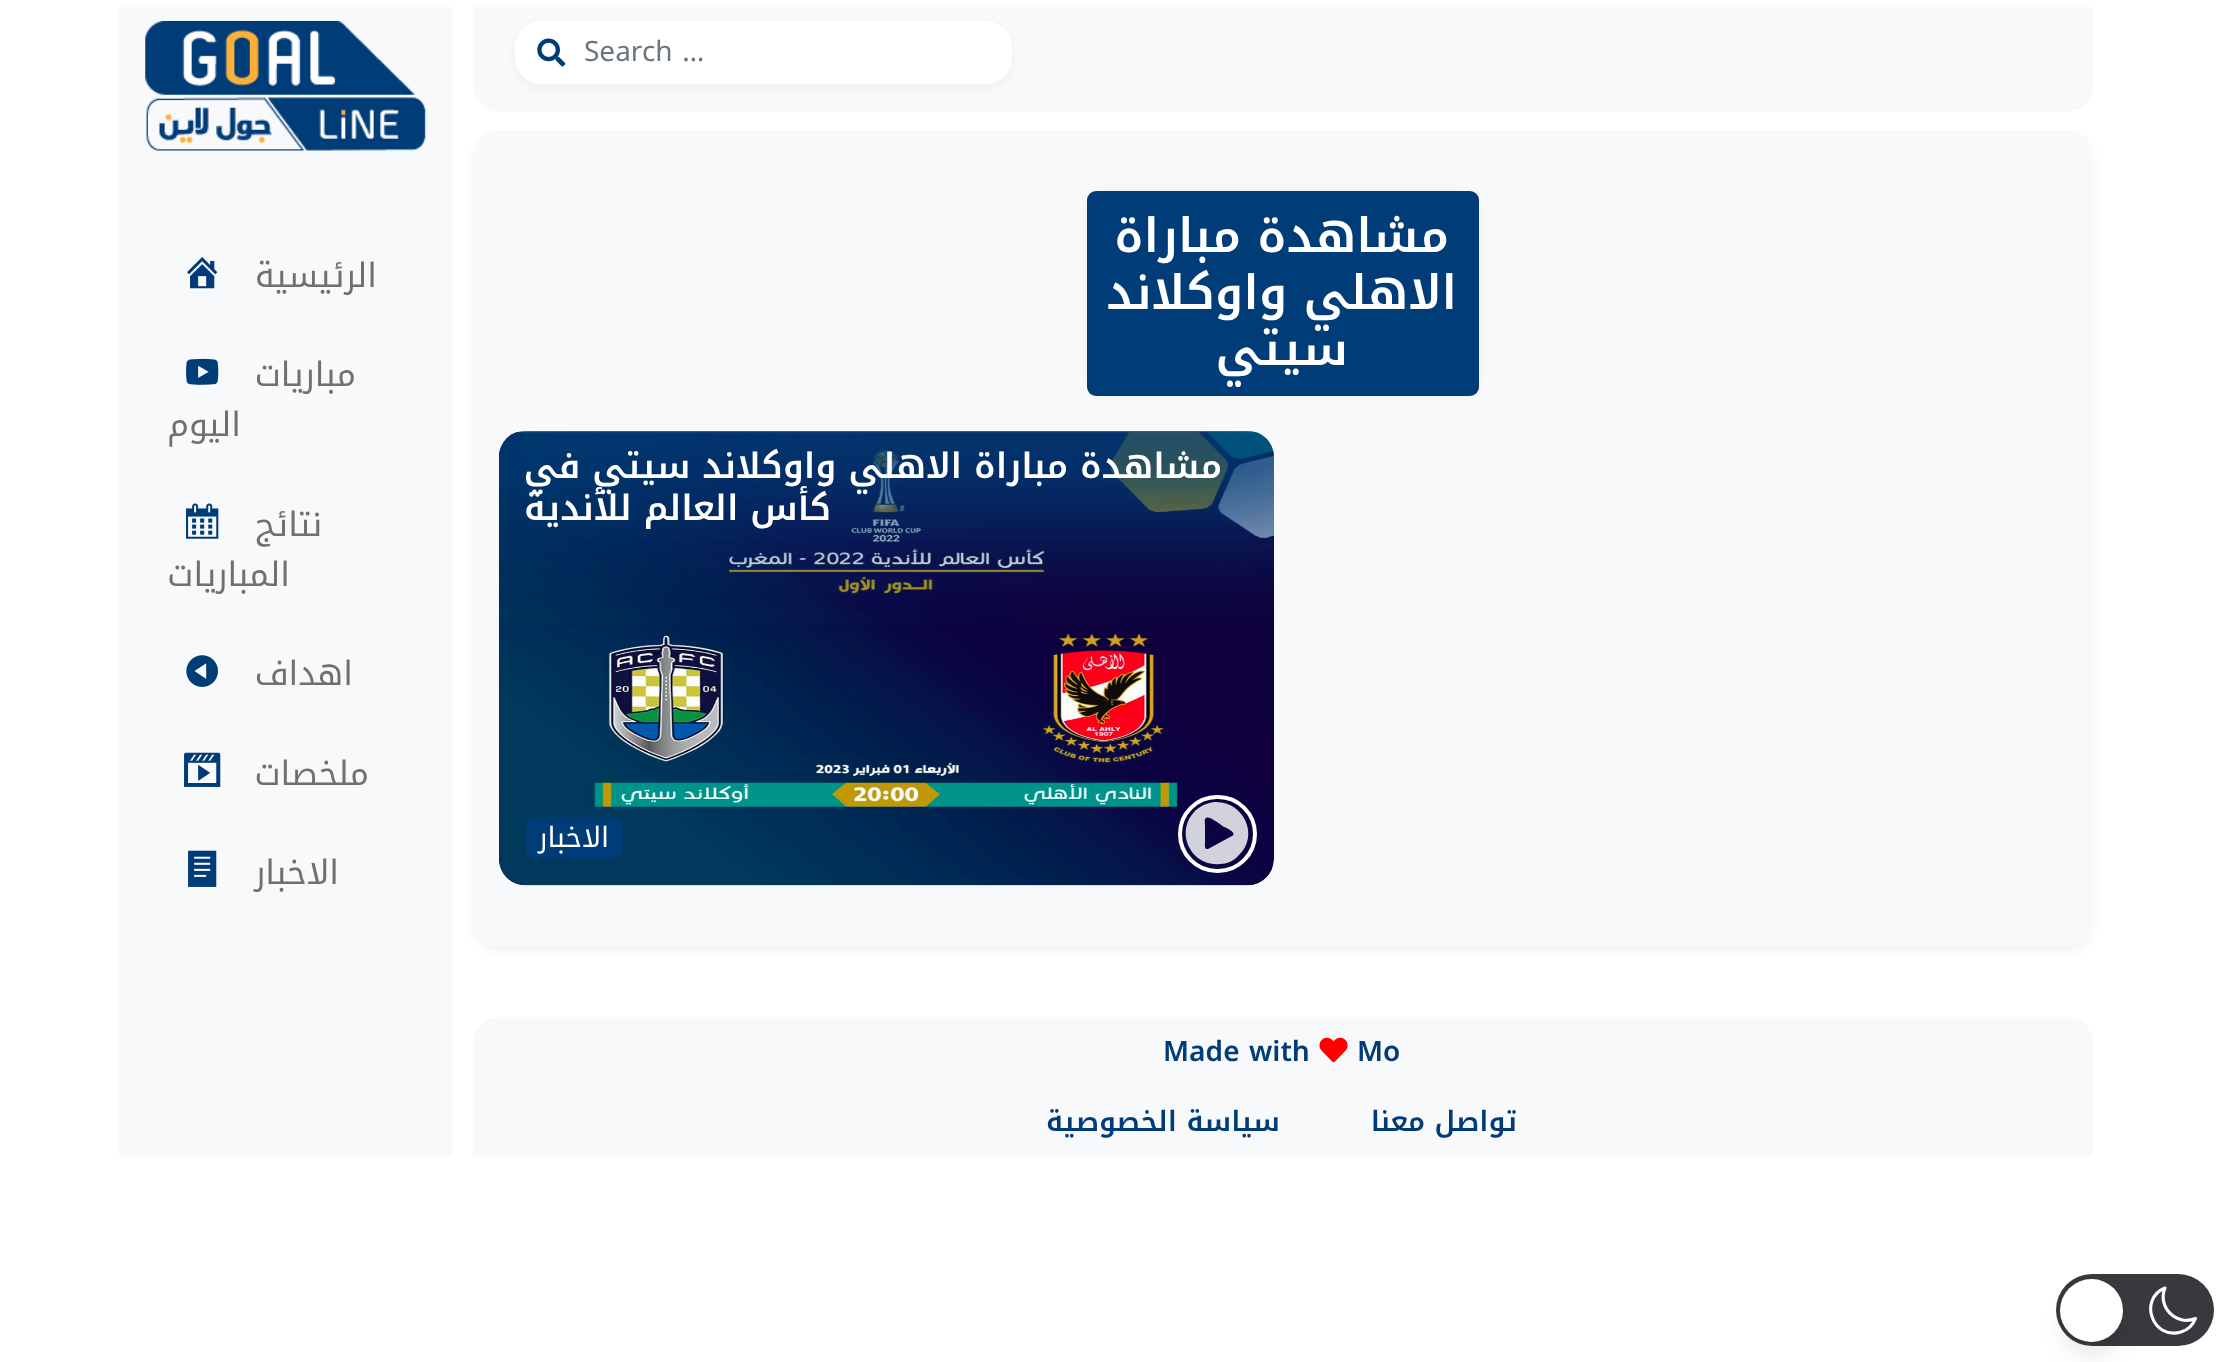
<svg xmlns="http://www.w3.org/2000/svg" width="2230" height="1362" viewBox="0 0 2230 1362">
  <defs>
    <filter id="blur1" x="-50%" y="-200%" width="200%" height="500%"><feGaussianBlur stdDeviation="6"/></filter>
    <filter id="blur2" x="-50%" y="-200%" width="200%" height="500%"><feGaussianBlur stdDeviation="7"/></filter>
    <filter id="blur3" x="-50%" y="-200%" width="200%" height="500%"><feGaussianBlur stdDeviation="9"/></filter>
    <clipPath id="clip1"><rect x="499" y="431" width="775" height="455" rx="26"/></clipPath>
    <filter id="blur4" x="-50%" y="-200%" width="200%" height="500%"><feGaussianBlur stdDeviation="63"/></filter>
    <clipPath id="clip2"><rect x="525" y="445" width="749" height="84"/></clipPath>
    <filter id="blur5" x="-50%" y="-200%" width="200%" height="500%"><feGaussianBlur stdDeviation="13"/></filter>
  </defs>
  <rect width="100%" height="100%" fill="#ffffff"/>
  <path d="M473 7H2093V86C2093 100.5 2081.5 112 2067 112H499C484.5 112 473 100.5 473 86Z" fill="#f8f9fa"/>
  <rect x="516" y="26" width="494" height="60" rx="25" fill="#e9ebef" filter="url(#blur1)"/>
  <rect x="515" y="21" width="497" height="63" rx="26" fill="#ffffff"/>
  <text x="584" y="61" font-family="Noto Kufi Arabic" font-size="28" fill="#6c757d">Search …</text>
  <image x="537" y="38" width="29" height="29" href="img1.png"/>
  <rect x="478" y="140" width="1610" height="807" rx="21" fill="#000000" fill-opacity="0.1" filter="url(#blur2)"/>
  <rect x="473" y="130" width="1620" height="817" rx="26" fill="#f8f9fa"/>
  <rect x="1097" y="201" width="371" height="184" fill="#c5c5c5" filter="url(#blur3)"/>
  <rect x="1087" y="191" width="392" height="205" rx="9" fill="#003c77"/>
  <text x="1449" y="252" font-family="Noto Kufi Arabic" font-size="47.25" font-weight="600" direction="rtl" fill="#ffffff">مشاهدة مباراة</text>
  <text x="1457" y="309" font-family="Noto Kufi Arabic" font-size="47.25" font-weight="600" direction="rtl" fill="#ffffff">الاهلي واوكلاند</text>
  <text x="1348" y="365" font-family="Noto Kufi Arabic" font-size="47.25" font-weight="600" direction="rtl" fill="#ffffff">سيتي</text>
  <image x="499" y="431" width="775" height="455" href="img2.png"/>
  <rect x="119" y="7" width="333" height="1150" fill="#f8f9fa"/>
  <g clip-path="url(#clip1)">
    <rect x="420" y="362" width="933" height="158" fill="#003c77" filter="url(#blur4)"/>
  </g>
  <text x="1222" y="478" font-family="Noto Kufi Arabic" font-size="35" font-weight="600" direction="rtl" fill="#ffffff">مشاهدة مباراة الاهلي واوكلاند سيتي في</text>
  <g clip-path="url(#clip2)">
    <text x="831" y="520" font-family="Noto Kufi Arabic" font-size="35" font-weight="600" direction="rtl" fill="#ffffff">كأس العالم للأندية</text>
  </g>
  <path d="M1195 811C1200 806 1207 803 1214 802C1243 800 1260 835 1239 855C1234 861 1227 864 1220 864C1191 867 1174 832 1195 811ZM1232 836C1238 833 1225 827 1224 827L1217 822C1215 821 1209 816 1206 818C1204 819 1205 823 1205 825V842C1205 844 1204 850 1208 849Z" fill="#ffffff" fill-opacity="0.82"/>
  <rect x="1180" y="797" width="75" height="74" rx="37" fill="none" stroke="#ffffff" stroke-width="4"/>
  <rect x="525" y="817" width="98" height="42" rx="11" fill="#003c77"/>
  <text x="609" y="847" font-family="Noto Kufi Arabic" font-size="28" direction="rtl" fill="#ffffff">الاخبار</text>
  <path d="M499 1017H2067C2081.5 1017 2093 1028.5 2093 1043V1157H473V1043C473 1028.5 484.5 1017 499 1017Z" fill="#f8f9fa"/>
  <text x="1357" y="1061" font-family="Noto Kufi Arabic" font-size="28" font-weight="600" fill="#003c77">Mo</text>
  <image x="1319" y="1037" width="29" height="26" href="img3.png"/>
  <text x="1163" y="1061" font-family="Noto Kufi Arabic" font-size="28" font-weight="600" fill="#003c77">Made with</text>
  <text x="1517" y="1131" font-family="Noto Kufi Arabic" font-size="28" font-weight="600" direction="rtl" fill="#003c77">تواصل معنا</text>
  <text x="1280" y="1131" font-family="Noto Kufi Arabic" font-size="28" font-weight="600" direction="rtl" fill="#003c77">سياسة الخصوصية</text>
  <rect x="2056" y="1274" width="158" height="72" rx="36" fill="#39393d"/>
  <path d="M2195.5 1318.5C2176.5 1326.5 2157 1307 2165 1288C2138 1299 2152.5 1340.5 2181 1332C2187.5 1330 2193 1325 2195.5 1318.5Z" fill="none" stroke="#ffffff" stroke-width="3.1" stroke-linecap="round" stroke-linejoin="round"/>
  <rect x="2065" y="1302" width="53" height="53" rx="26.5" fill="#000000" fill-opacity="0.1" filter="url(#blur5)"/>
  <circle cx="2091.5" cy="1310.5" r="31.5" fill="#ffffff"/>
  <image x="145" y="21" width="281" height="130" href="img4.png"/>
  <text x="377" y="287" font-family="Noto Kufi Arabic" font-size="33.5" direction="rtl" fill="#707071">الرئيسية</text>
  <image x="187" y="257" width="31" height="32" href="img5.png"/>
  <text x="356" y="386" font-family="Noto Kufi Arabic" font-size="33.5" direction="rtl" fill="#707071">مباريات</text>
  <image x="186" y="358" width="33" height="27" href="img6.png"/>
  <text x="241" y="436" font-family="Noto Kufi Arabic" font-size="33.5" direction="rtl" fill="#707071">اليوم</text>
  <text x="322" y="536" font-family="Noto Kufi Arabic" font-size="33.5" direction="rtl" fill="#707071">نتائج</text>
  <image x="186" y="503" width="33" height="36" href="img7.png"/>
  <text x="290" y="586" font-family="Noto Kufi Arabic" font-size="33.5" direction="rtl" fill="#707071">المباريات</text>
  <text x="353" y="685" font-family="Noto Kufi Arabic" font-size="33.5" direction="rtl" fill="#707071">اهداف</text>
  <image x="186" y="655" width="32" height="32" href="img8.png"/>
  <text x="369" y="785" font-family="Noto Kufi Arabic" font-size="33.5" direction="rtl" fill="#707071">ملخصات</text>
  <image x="184" y="752" width="37" height="35" href="img9.png"/>
  <text x="339" y="884" font-family="Noto Kufi Arabic" font-size="33.5" direction="rtl" fill="#707071">الاخبار</text>
  <image x="188" y="850" width="29" height="37" href="img10.png"/>
</svg>
